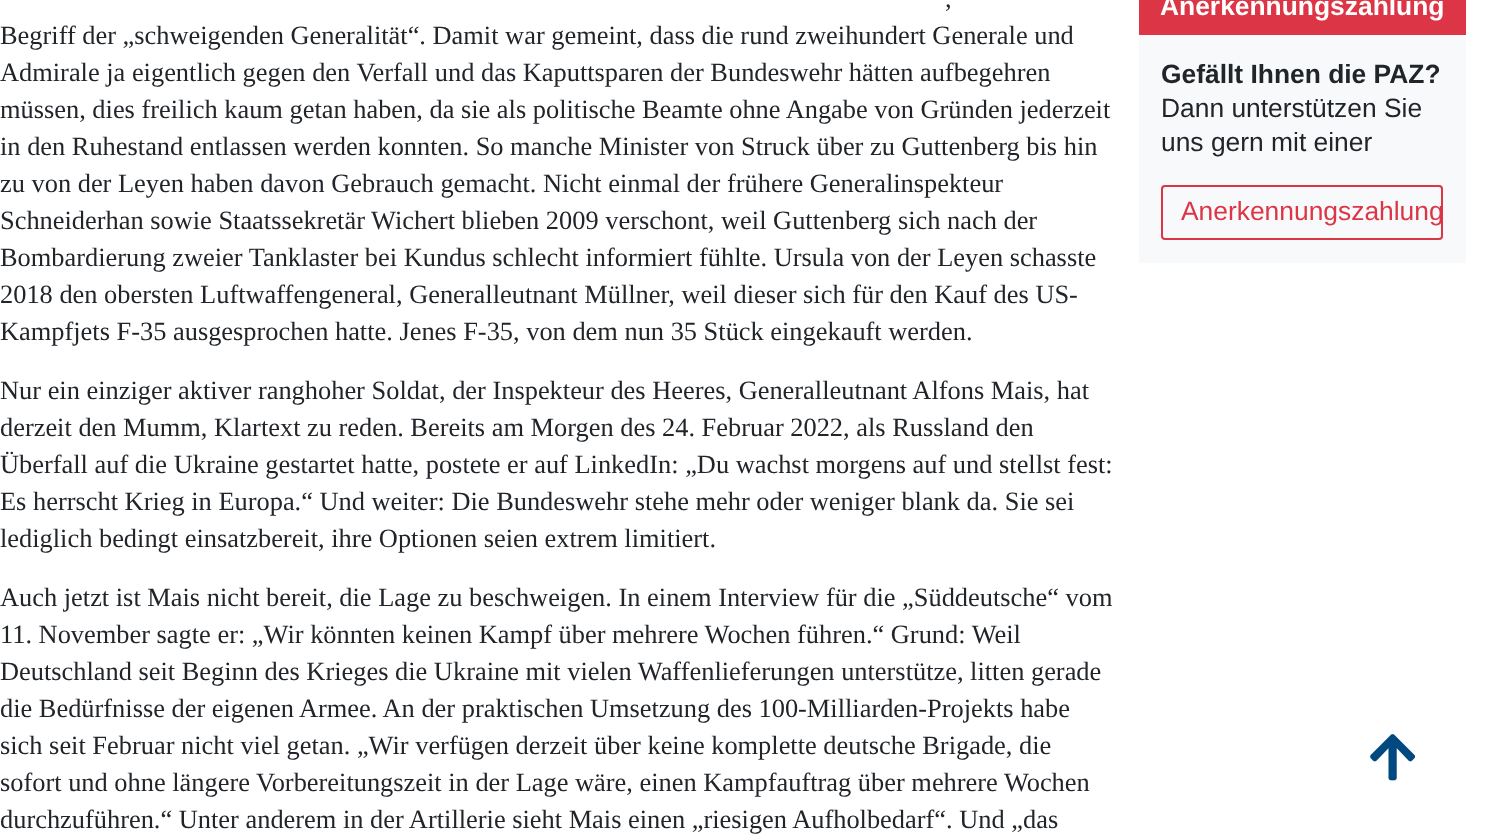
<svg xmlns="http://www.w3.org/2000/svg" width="1488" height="840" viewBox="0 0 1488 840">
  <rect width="100%" height="100%" fill="#ffffff"/>
  <text x="945" y="7" font-family="Liberation Serif" font-size="26.4" fill="#212529">,</text>
  <text x="0" y="44" font-family="Liberation Serif" font-size="26.4" fill="#212529">Begriff der „schweigenden Generalität“. Damit war gemeint, dass die rund zweihundert Generale und</text>
  <text x="0" y="81" font-family="Liberation Serif" font-size="26.4" fill="#212529">Admirale ja eigentlich gegen den Verfall und das Kaputtsparen der Bundeswehr hätten aufbegehren</text>
  <text x="0" y="118" font-family="Liberation Serif" font-size="26.4" fill="#212529">müssen, dies freilich kaum getan haben, da sie als politische Beamte ohne Angabe von Gründen jederzeit</text>
  <text x="0" y="155" font-family="Liberation Serif" font-size="26.4" fill="#212529">in den Ruhestand entlassen werden konnten. So manche Minister von Struck über zu Guttenberg bis hin</text>
  <text x="0" y="192" font-family="Liberation Serif" font-size="26.4" fill="#212529">zu von der Leyen haben davon Gebrauch gemacht. Nicht einmal der frühere Generalinspekteur</text>
  <text x="0" y="229" font-family="Liberation Serif" font-size="26.4" fill="#212529">Schneiderhan sowie Staatssekretär Wichert blieben 2009 verschont, weil Guttenberg sich nach der</text>
  <text x="0" y="266" font-family="Liberation Serif" font-size="26.4" fill="#212529">Bombardierung zweier Tanklaster bei Kundus schlecht informiert fühlte. Ursula von der Leyen schasste</text>
  <text x="0" y="303" font-family="Liberation Serif" font-size="26.4" fill="#212529">2018 den obersten Luftwaffengeneral, Generalleutnant Müllner, weil dieser sich für den Kauf des US-</text>
  <text x="0" y="340" font-family="Liberation Serif" font-size="26.4" fill="#212529">Kampfjets F-35 ausgesprochen hatte. Jenes F-35, von dem nun 35 Stück eingekauft werden.</text>
  <text x="0" y="399" font-family="Liberation Serif" font-size="26.4" fill="#212529">Nur ein einziger aktiver ranghoher Soldat, der Inspekteur des Heeres, Generalleutnant Alfons Mais, hat</text>
  <text x="0" y="436" font-family="Liberation Serif" font-size="26.4" fill="#212529">derzeit den Mumm, Klartext zu reden. Bereits am Morgen des 24. Februar 2022, als Russland den</text>
  <text x="0" y="473" font-family="Liberation Serif" font-size="26.4" fill="#212529">Überfall auf die Ukraine gestartet hatte, postete er auf LinkedIn: „Du wachst morgens auf und stellst fest:</text>
  <text x="0" y="510" font-family="Liberation Serif" font-size="26.4" fill="#212529">Es herrscht Krieg in Europa.“ Und weiter: Die Bundeswehr stehe mehr oder weniger blank da. Sie sei</text>
  <text x="0" y="547" font-family="Liberation Serif" font-size="26.4" fill="#212529">lediglich bedingt einsatzbereit, ihre Optionen seien extrem limitiert.</text>
  <text x="0" y="606" font-family="Liberation Serif" font-size="26.4" fill="#212529">Auch jetzt ist Mais nicht bereit, die Lage zu beschweigen. In einem Interview für die „Süddeutsche“ vom</text>
  <text x="0" y="643" font-family="Liberation Serif" font-size="26.4" fill="#212529">11. November sagte er: „Wir könnten keinen Kampf über mehrere Wochen führen.“ Grund: Weil</text>
  <text x="0" y="680" font-family="Liberation Serif" font-size="26.4" fill="#212529">Deutschland seit Beginn des Krieges die Ukraine mit vielen Waffenlieferungen unterstütze, litten gerade</text>
  <text x="0" y="717" font-family="Liberation Serif" font-size="26.4" fill="#212529">die Bedürfnisse der eigenen Armee. An der praktischen Umsetzung des 100-Milliarden-Projekts habe</text>
  <text x="0" y="754" font-family="Liberation Serif" font-size="26.4" fill="#212529">sich seit Februar nicht viel getan. „Wir verfügen derzeit über keine komplette deutsche Brigade, die</text>
  <text x="0" y="791" font-family="Liberation Serif" font-size="26.4" fill="#212529">sofort und ohne längere Vorbereitungszeit in der Lage wäre, einen Kampfauftrag über mehrere Wochen</text>
  <text x="0" y="828" font-family="Liberation Serif" font-size="26.4" fill="#212529">durchzuführen.“ Unter anderem in der Artillerie sieht Mais einen „riesigen Aufholbedarf“. Und „das</text>
  <rect x="1139" y="35" width="327" height="228" fill="#f8f9fa"/>
  <rect x="1139" y="0" width="327" height="35" fill="#dc3545"/>
  <text x="1160" y="15" font-family="Liberation Sans" font-size="26.4" font-weight="bold" fill="#ffffff">Anerkennungszahlung</text>
  <text x="1161" y="83" font-family="Liberation Sans" font-size="26.4" font-weight="bold" fill="#212529">Gefällt Ihnen die PAZ?</text>
  <text x="1161" y="117" font-family="Liberation Sans" font-size="26.4" fill="#212529">Dann unterstützen Sie</text>
  <text x="1161" y="151" font-family="Liberation Sans" font-size="26.4" fill="#212529">uns gern mit einer</text>
  <rect x="1162" y="186" width="280" height="53" rx="3" fill="none" stroke="#dc3545" stroke-width="2"/>
  <text x="1181" y="220" font-family="Liberation Sans" font-size="26.4" fill="#dc3545">Anerkennungszahlung</text>
  <image x="1370" y="734" width="46" height="47" href="img1.png"/>
</svg>
